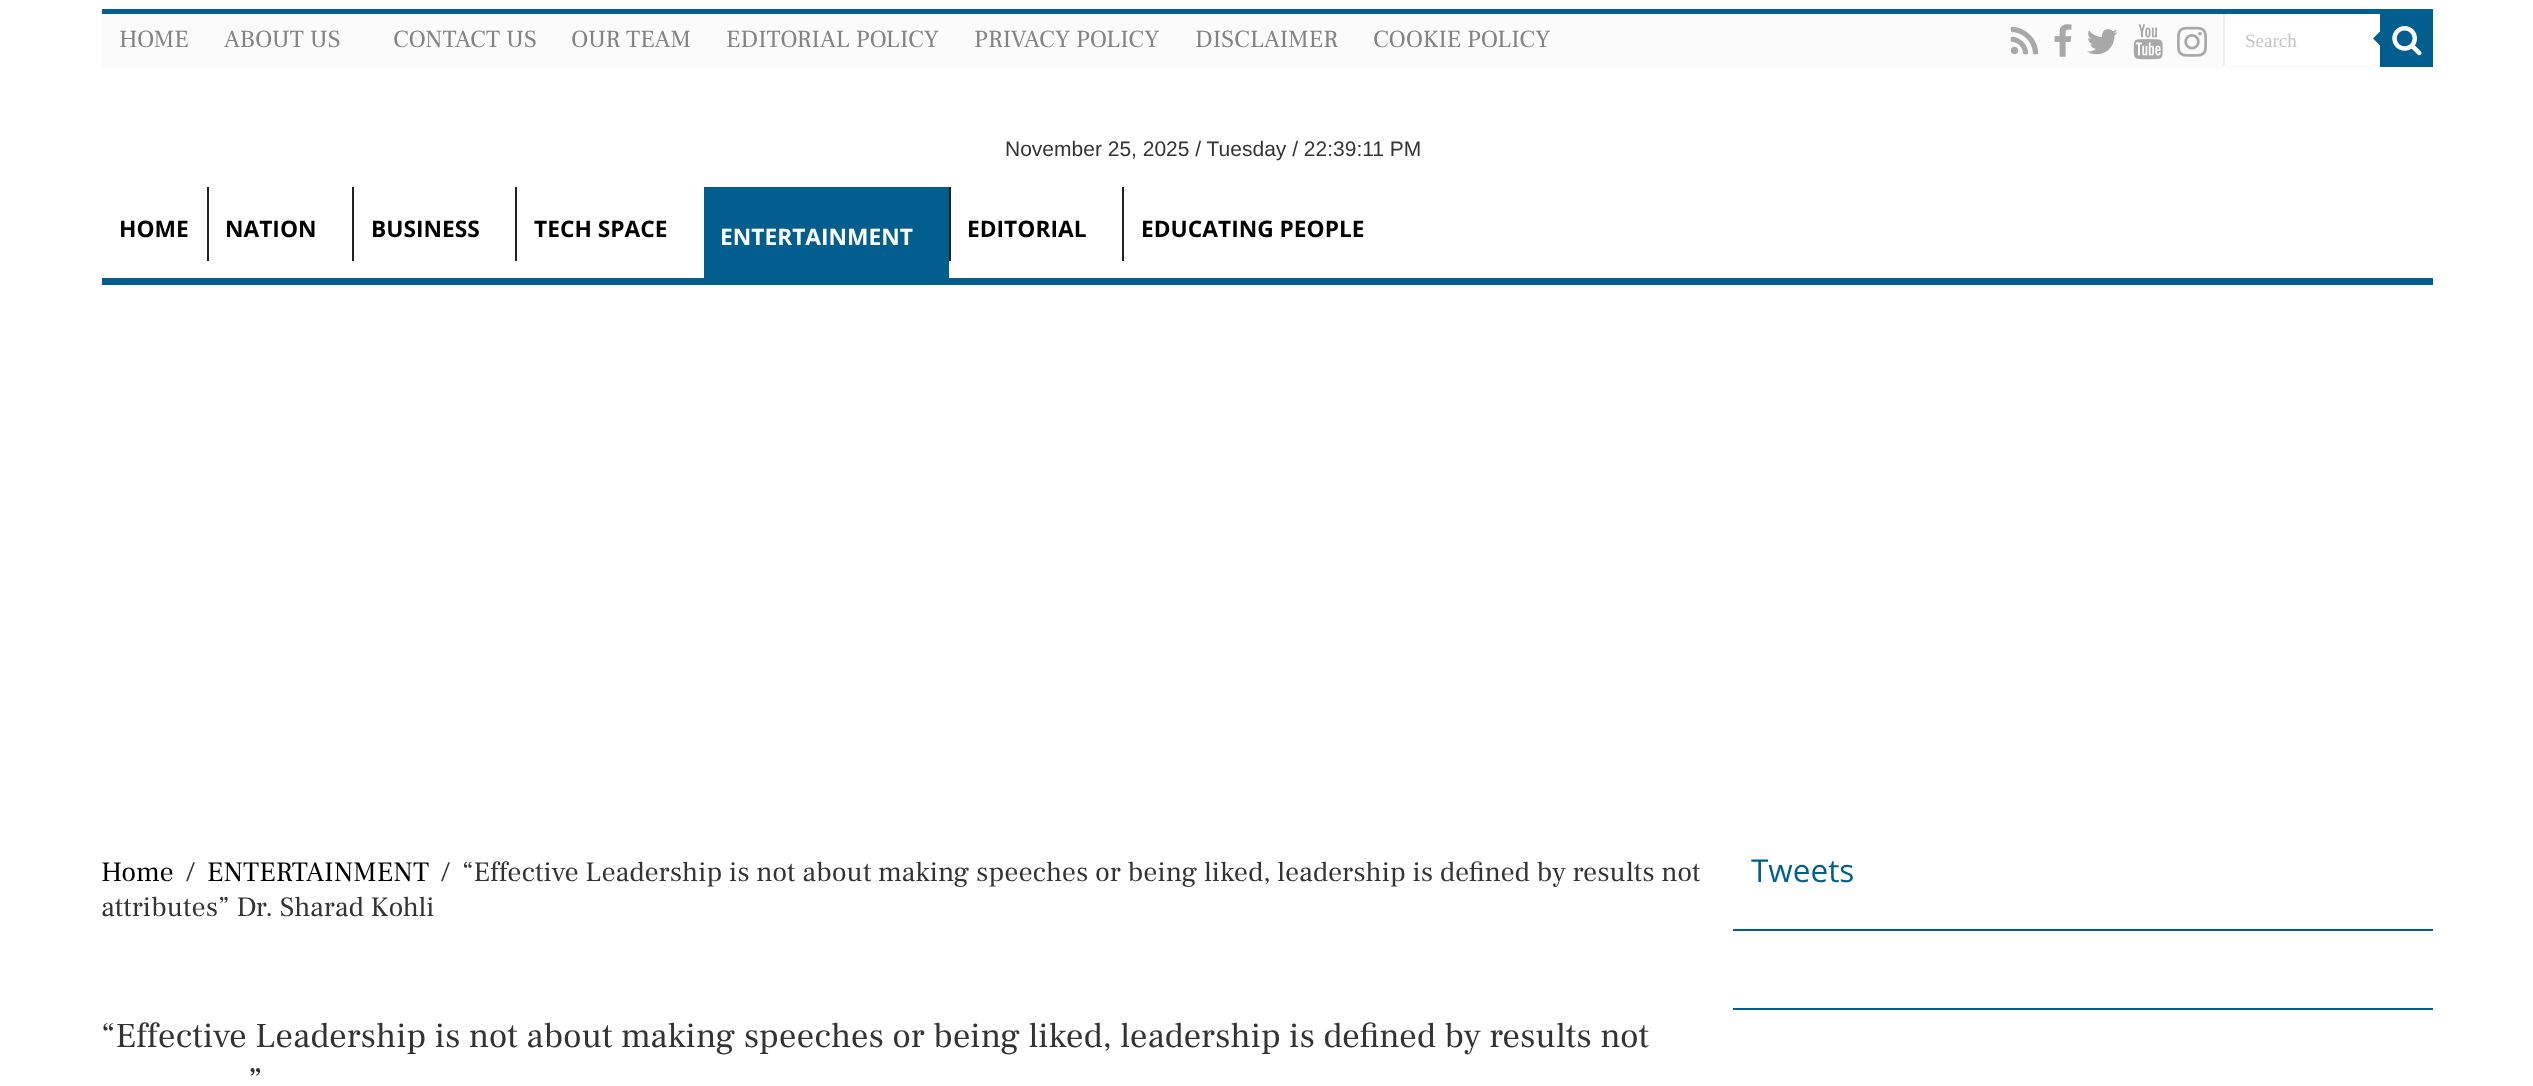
<svg xmlns="http://www.w3.org/2000/svg" width="2533" height="1086" viewBox="0 0 2533 1086">
  <rect width="100%" height="100%" fill="#ffffff"/>
  <rect x="102" y="9" width="2331" height="5" fill="#015e8e"/>
  <rect x="102" y="14" width="2331" height="54" fill="#fbfbfb"/>
  <text x="119" y="47" font-family="Frank Ruhl Libre" font-size="24.5" fill="#838383">HOME</text>
  <text x="224" y="47" font-family="Frank Ruhl Libre" font-size="24.5" fill="#838383">ABOUT US</text>
  <text x="393" y="47" font-family="Frank Ruhl Libre" font-size="24.5" fill="#838383">CONTACT US</text>
  <text x="571" y="47" font-family="Frank Ruhl Libre" font-size="24.5" fill="#838383">OUR TEAM</text>
  <text x="726" y="47" font-family="Frank Ruhl Libre" font-size="24.5" fill="#838383">EDITORIAL POLICY</text>
  <text x="974" y="47" font-family="Frank Ruhl Libre" font-size="24.5" fill="#838383">PRIVACY POLICY</text>
  <text x="1195" y="47" font-family="Frank Ruhl Libre" font-size="24.5" fill="#838383">DISCLAIMER</text>
  <text x="1373" y="47" font-family="Frank Ruhl Libre" font-size="24.5" fill="#838383">COOKIE POLICY</text>
  <image x="2010" y="26" width="29" height="29" href="img1.png"/>
  <image x="2054" y="24" width="18" height="33" href="img2.png"/>
  <image x="2087" y="29" width="31" height="26" href="img3.png"/>
  <image x="2133" y="24" width="30" height="36" href="img4.png"/>
  <image x="2177" y="26" width="30" height="31" href="img5.png"/>
  <rect x="2225" y="14" width="155" height="51" fill="#ffffff"/>
  <rect x="2223" y="14" width="2" height="51" fill="#ececec"/>
  <text x="2245" y="47" font-family="Liberation Serif" font-size="19" fill="#c5c5c5">Search</text>
  <rect x="2380" y="14" width="53" height="53" fill="#015e8e"/>
  <image x="2392" y="26" width="30" height="30" href="img6.png"/>
  <path d="M2380 31.5V45.5L2373 38.5Z" fill="#015e8e"/>
  <text x="1005" y="156" font-family="Liberation Sans" font-size="21" fill="#333333">November 25, 2025 / Tuesday / 22:39:11 PM</text>
  <rect x="102" y="278" width="2331" height="7" fill="#015e8e"/>
  <text x="119" y="237" font-family="Open Sans" font-size="22.75" font-weight="bold" fill="#000000">HOME</text>
  <rect x="207" y="187" width="2" height="74" fill="#222222"/>
  <text x="225" y="237" font-family="Open Sans" font-size="22.75" font-weight="bold" fill="#000000">NATION</text>
  <rect x="352" y="187" width="2" height="74" fill="#222222"/>
  <text x="371" y="237" font-family="Open Sans" font-size="22.75" font-weight="bold" fill="#000000">BUSINESS</text>
  <rect x="515" y="187" width="2" height="74" fill="#222222"/>
  <text x="534" y="237" font-family="Open Sans" font-size="22.75" font-weight="bold" fill="#000000">TECH SPACE</text>
  <rect x="704" y="187" width="245" height="91" fill="#015e8e"/>
  <text x="720" y="245" font-family="Open Sans" font-size="22.75" font-weight="bold" fill="#ffffff">ENTERTAINMENT</text>
  <rect x="949" y="187" width="2" height="74" fill="#222222"/>
  <text x="967" y="237" font-family="Open Sans" font-size="22.75" font-weight="bold" fill="#000000">EDITORIAL</text>
  <rect x="1122" y="187" width="2" height="74" fill="#222222"/>
  <text x="1141" y="237" font-family="Open Sans" font-size="22.75" font-weight="bold" fill="#000000">EDUCATING PEOPLE</text>
  <text x="101" y="881" font-family="Frank Ruhl Libre" font-size="28" fill="#000000">Home</text>
  <text x="186" y="881" font-family="Frank Ruhl Libre" font-size="28" fill="#333333">/</text>
  <text x="207" y="881" font-family="Frank Ruhl Libre" font-size="28" fill="#000000">ENTERTAINMENT</text>
  <text x="441" y="881" font-family="Frank Ruhl Libre" font-size="28" fill="#333333">/</text>
  <text x="462" y="881" font-family="Frank Ruhl Libre" font-size="28" fill="#333333">“Effective Leadership is not about making speeches or being liked, leadership is defined by results not</text>
  <text x="101" y="916" font-family="Frank Ruhl Libre" font-size="28" fill="#333333">attributes” Dr. Sharad Kohli</text>
  <text x="101" y="1047" font-family="Frank Ruhl Libre" font-size="35" fill="#333333">“Effective Leadership is not about making speeches or being liked, leadership is defined by results not</text>
  <text x="248" y="1092" font-family="Frank Ruhl Libre" font-size="35" fill="#333333">”</text>
  <text x="1751" y="882" font-family="Open Sans" font-size="31.5" fill="#015e8e">Tweets</text>
  <rect x="1733" y="929" width="700" height="2" fill="#015e8e"/>
  <rect x="1733" y="1008" width="700" height="2" fill="#015e8e"/>
</svg>
